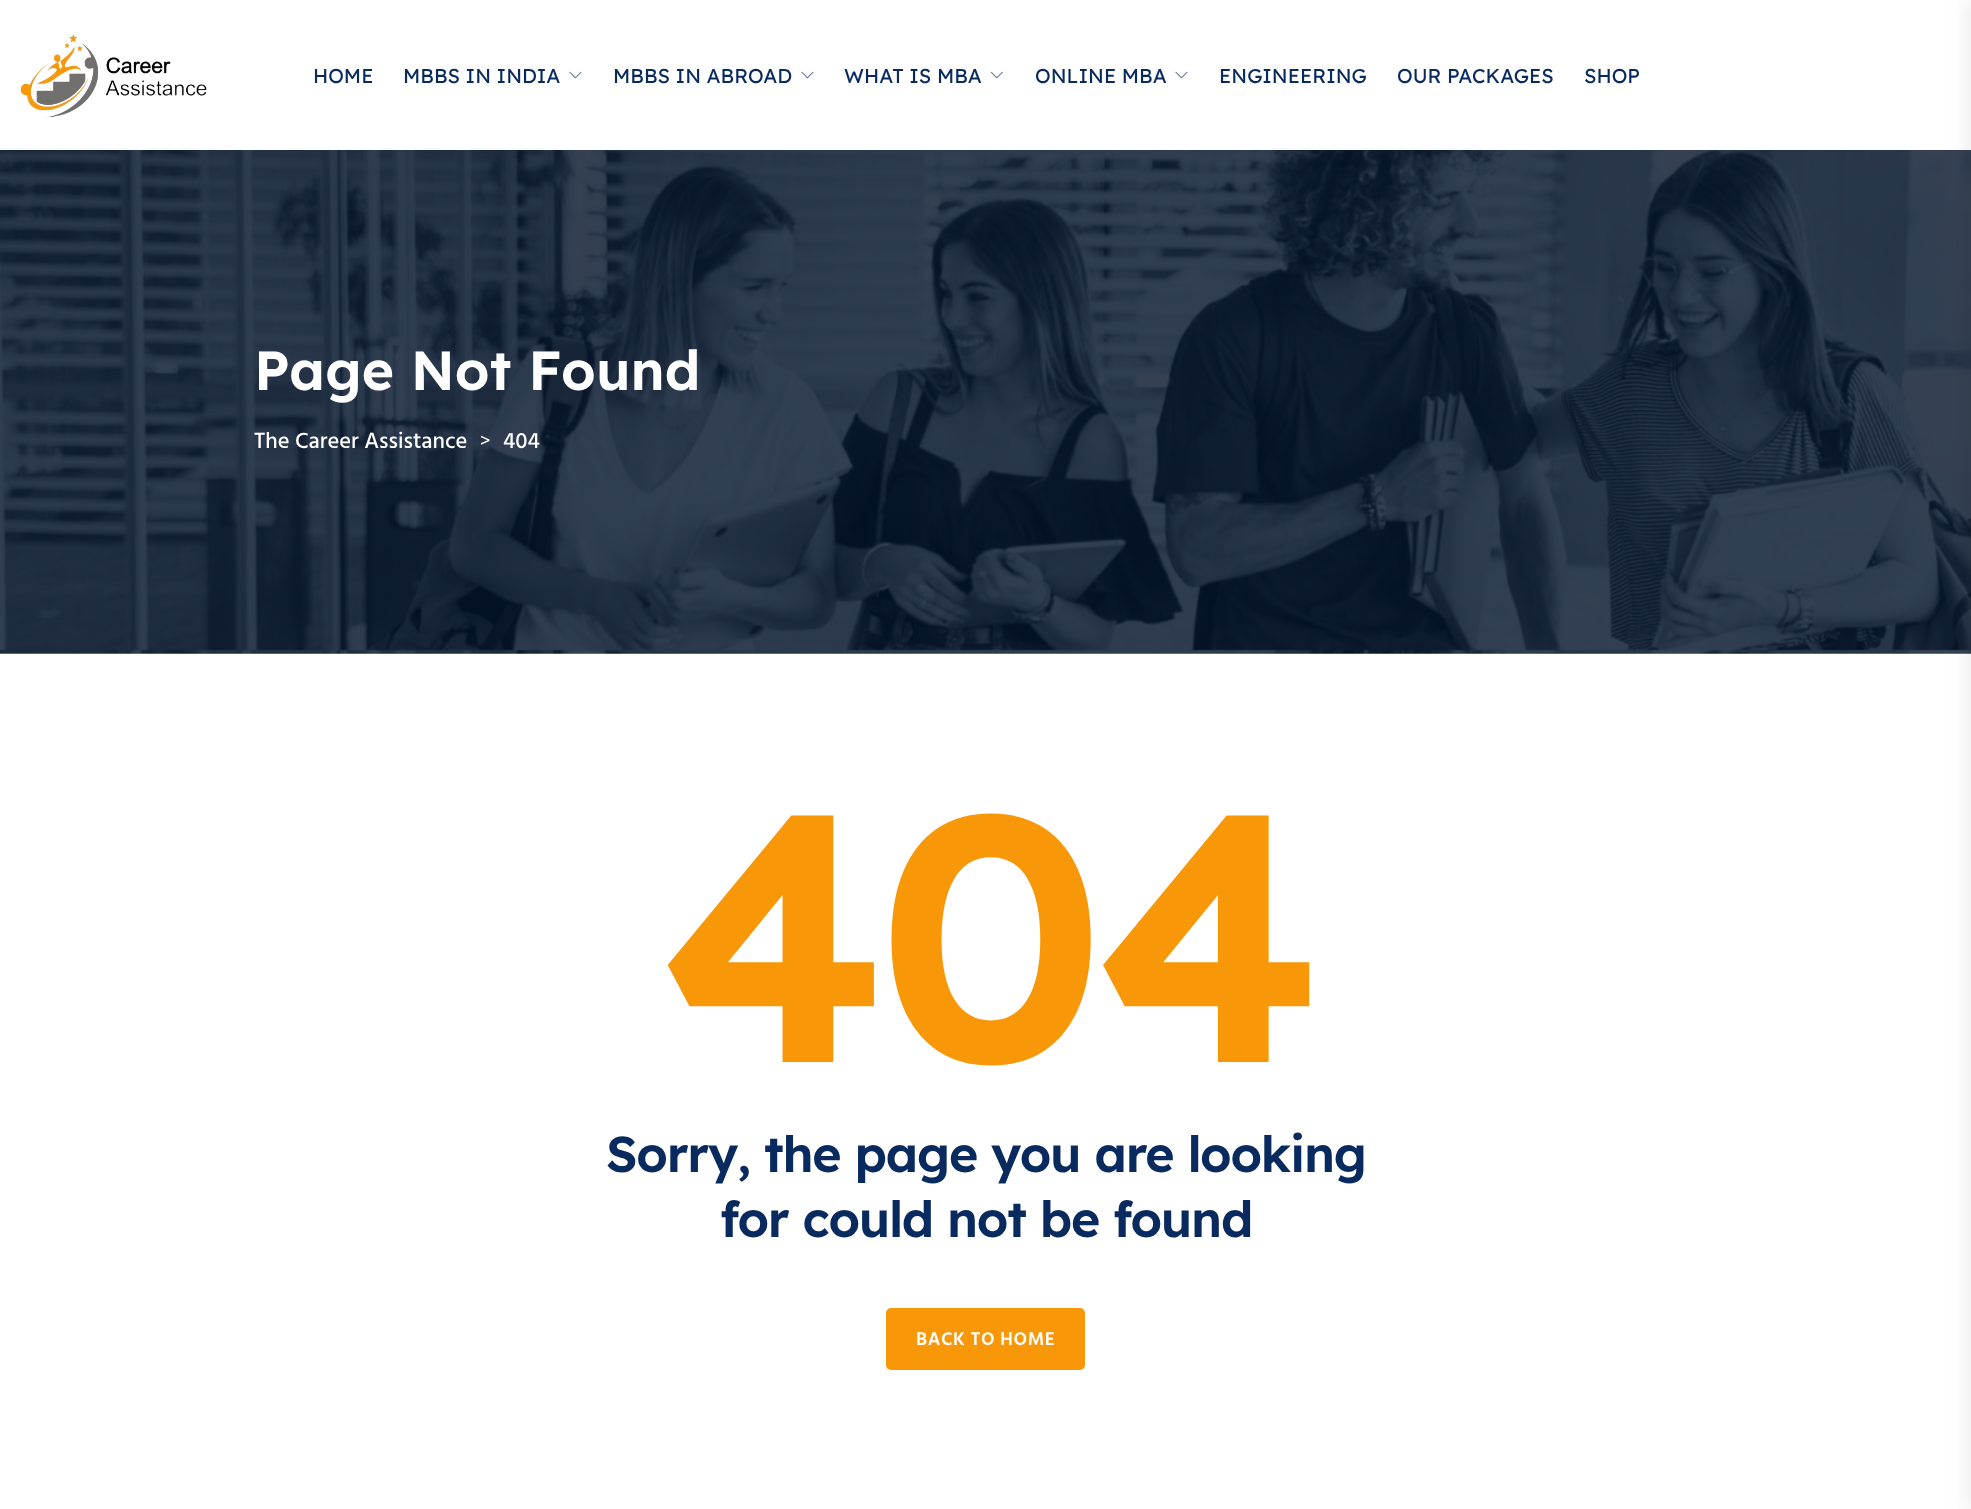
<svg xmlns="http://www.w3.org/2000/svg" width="1971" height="1509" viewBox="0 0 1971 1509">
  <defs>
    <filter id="blur1" x="-50%" y="-200%" width="200%" height="500%"><feGaussianBlur stdDeviation="9"/></filter>
  </defs>
  <rect width="100%" height="100%" fill="#ffffff"/>
  <image x="20" y="32" width="187" height="86" href="img1.png"/>
  <text x="313" y="83" font-family="Lexend Deca" font-size="20" fill="#082a5e">HOME</text>
  <text x="403" y="83" font-family="Lexend Deca" font-size="20" fill="#082a5e">MBBS IN INDIA</text>
  <image x="569" y="71" width="13" height="8" href="img2.png"/>
  <text x="613" y="83" font-family="Lexend Deca" font-size="20" fill="#082a5e">MBBS IN ABROAD</text>
  <image x="801" y="71" width="13" height="8" href="img3.png"/>
  <text x="844" y="83" font-family="Lexend Deca" font-size="20" fill="#082a5e">WHAT IS MBA</text>
  <image x="990" y="71" width="13" height="8" href="img4.png"/>
  <text x="1035" y="83" font-family="Lexend Deca" font-size="20" fill="#082a5e">ONLINE MBA</text>
  <image x="1175" y="71" width="13" height="8" href="img5.png"/>
  <text x="1219" y="83" font-family="Lexend Deca" font-size="20" fill="#082a5e">ENGINEERING</text>
  <text x="1397" y="83" font-family="Lexend Deca" font-size="20" fill="#082a5e">OUR PACKAGES</text>
  <text x="1584" y="83" font-family="Lexend Deca" font-size="20" fill="#082a5e">SHOP</text>
  <image x="0" y="150" width="1971" height="504" href="img6.png"/>
  <rect x="1964" y="0" width="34" height="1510" fill="#000000" fill-opacity="0.06" filter="url(#blur1)"/>
  <text x="254" y="390" font-family="Lexend Deca" font-size="55" font-weight="600" fill="#ffffff">Page Not Found</text>
  <text x="254" y="448" font-family="Hind" font-size="22.5" font-weight="500" fill="#ffffff">The Career Assistance</text>
  <text x="480" y="447" font-family="Hind" font-size="20" fill="#ffffff">&gt;</text>
  <text x="503" y="448" font-family="Hind" font-size="22.5" font-weight="500" fill="#ffffff">404</text>
  <text x="660" y="1062" font-family="Lexend Deca" font-size="350" font-weight="600" letter-spacing="-10" fill="#f89809">404</text>
  <text x="606" y="1172" font-family="Lexend Deca" font-size="50" font-weight="600" letter-spacing="-1.25" fill="#082a5e">Sorry, the page you are looking</text>
  <text x="720" y="1237" font-family="Lexend Deca" font-size="50" font-weight="600" letter-spacing="-1.25" fill="#082a5e">for could not be found</text>
  <rect x="886" y="1308" width="199" height="62" rx="5" fill="#f89809"/>
  <text x="916" y="1345" font-family="Hind" font-size="18.75" font-weight="600" letter-spacing="0.6" fill="#ffffff">BACK TO HOME</text>
</svg>
